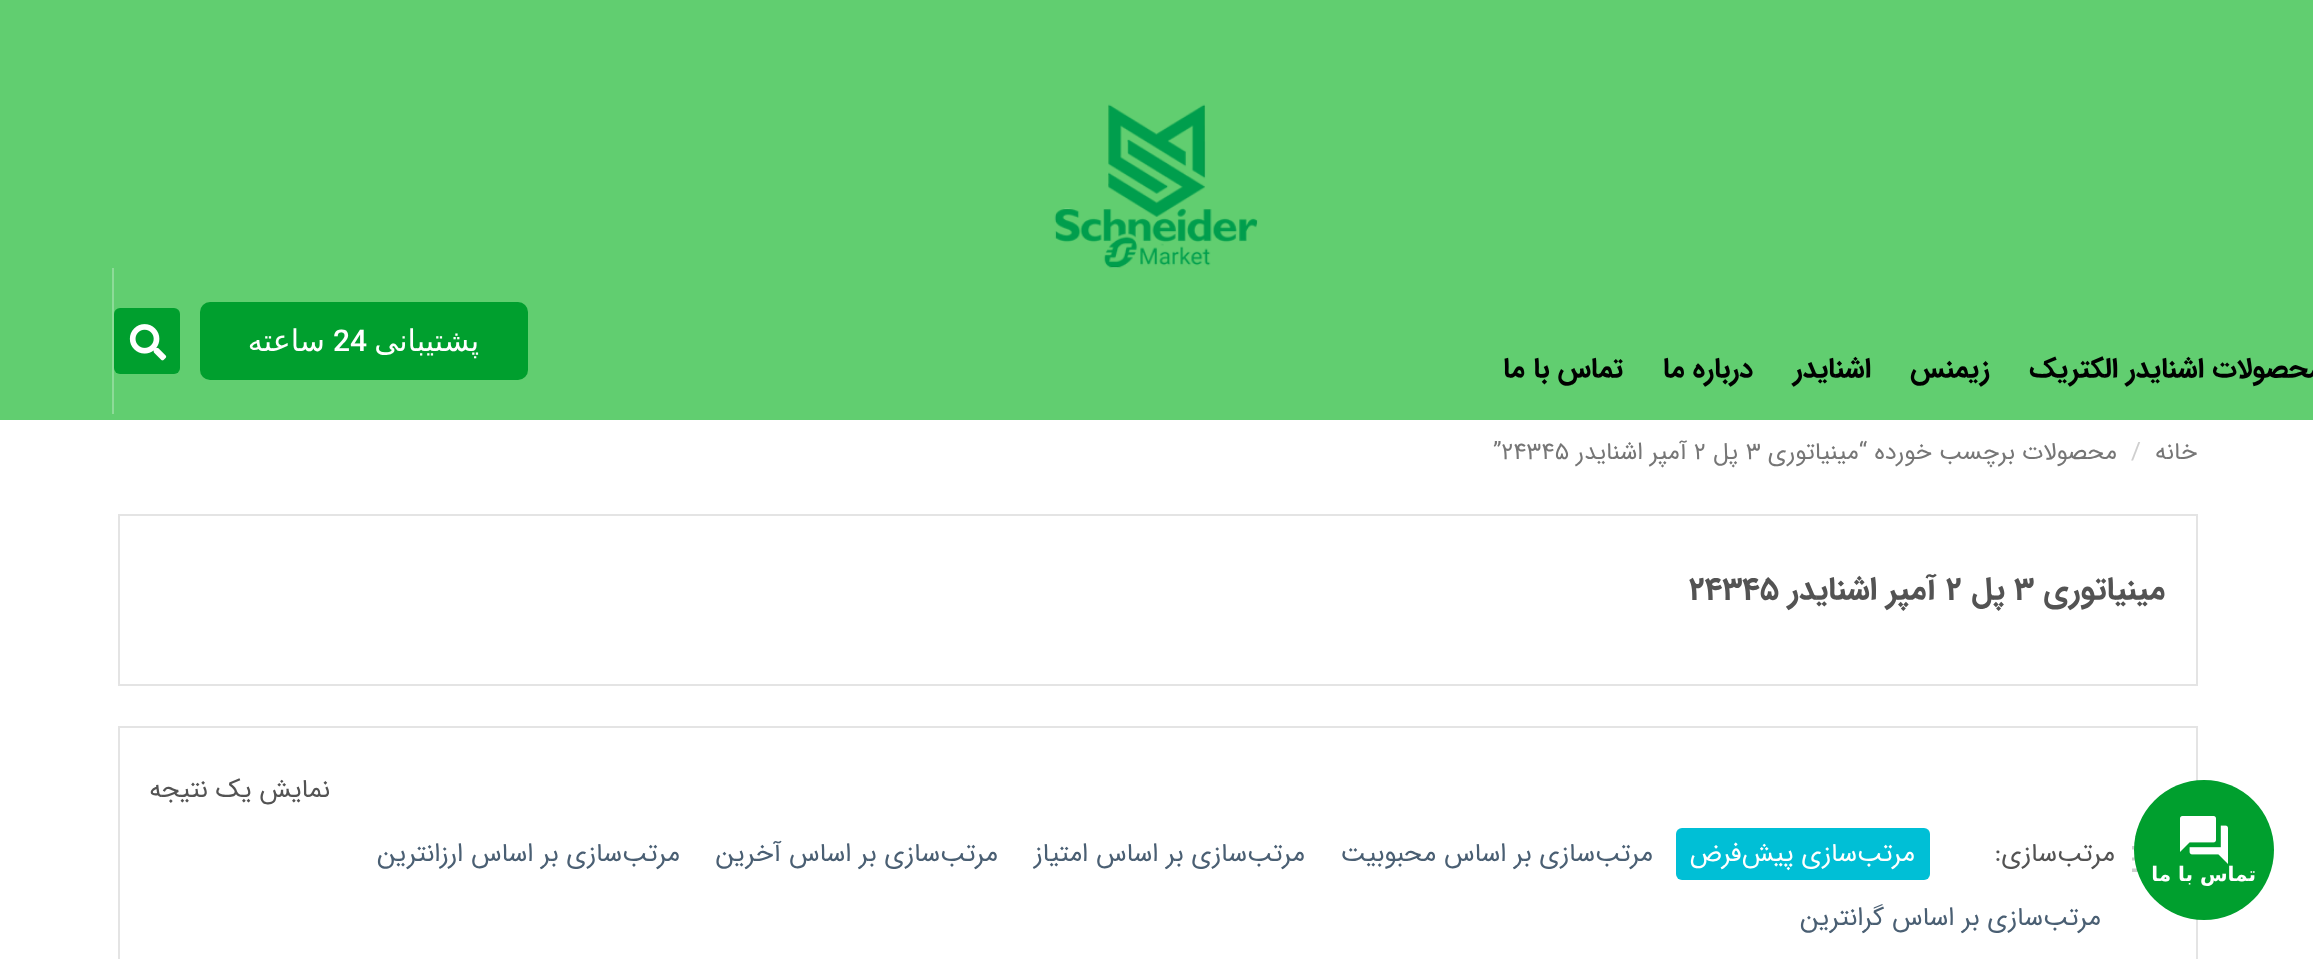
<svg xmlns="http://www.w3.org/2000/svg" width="2313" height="959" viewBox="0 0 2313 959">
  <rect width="100%" height="100%" fill="#ffffff"/>
  <rect x="0" y="0" width="2313" height="420" fill="#61ce70"/>
  <image x="1054" y="104" width="204" height="164" href="img1.png"/>
  <rect x="112" y="268" width="2" height="146" fill="#8ddb98"/>
  <rect x="200" y="302" width="328" height="78" rx="10" fill="#009f2e"/>
  <text x="479" y="351" font-family="DejaVu Sans" font-size="30" direction="rtl" fill="#ffffff">پشتیبانی</text>
  <text x="333" y="351" font-family="Roboto" font-size="30" font-weight="500" fill="#ffffff">24</text>
  <text x="325" y="351" font-family="DejaVu Sans" font-size="30" direction="rtl" fill="#ffffff">ساعته</text>
  <rect x="114" y="308" width="66" height="66" rx="6" fill="#009f2e"/>
  <image x="129" y="324" width="38" height="37" href="img2.png"/>
  <text x="2323" y="377" font-family="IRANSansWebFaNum" font-size="28" font-weight="bold" direction="rtl" fill="#000000">محصولات اشنایدر الکتریک</text>
  <text x="1990" y="377" font-family="IRANSansWebFaNum" font-size="28" font-weight="bold" direction="rtl" fill="#000000">زیمنس</text>
  <text x="1871" y="377" font-family="IRANSansWebFaNum" font-size="28" font-weight="bold" direction="rtl" fill="#000000">اشنایدر</text>
  <text x="1753" y="377" font-family="IRANSansWebFaNum" font-size="28" font-weight="bold" direction="rtl" fill="#000000">درباره ما</text>
  <text x="1623" y="377" font-family="IRANSansWebFaNum" font-size="28" font-weight="bold" direction="rtl" fill="#000000">تماس با ما</text>
  <rect x="119" y="727" width="2078" height="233" fill="none" stroke="#e4e4e4" stroke-width="2"/>
  <path d="M2165 849.5H2132V846H2165ZM2152.5 860.5H2132V857.5H2152.5ZM2144.5 872H2132V868.5H2144.5Z" fill="#cecece"/>
  <circle cx="2204" cy="850" r="70" fill="#009f2e"/>
  <image x="2180" y="816" width="48" height="48" href="img3.png"/>
  <text x="2256" y="881" font-family="DejaVu Sans" font-size="20" font-weight="bold" direction="rtl" fill="#ffffff">تماس با ما</text>
  <text x="2197" y="459" font-family="IRANSansWebFaNum" font-size="24" direction="rtl" fill="#767676">خانه</text>
  <text x="2131" y="459" font-family="IRANSansWebFaNum" font-size="24" fill="#cfcfcf">/</text>
  <text x="2117" y="459" font-family="IRANSansWebFaNum" font-size="24" direction="rtl" fill="#767676">محصولات برچسب خورده “مينياتوری</text>
  <text x="1746" y="459" font-family="IRANSansWebFaNum" font-size="24" fill="#767676">3</text>
  <text x="1738" y="459" font-family="IRANSansWebFaNum" font-size="24" direction="rtl" fill="#767676">پل</text>
  <text x="1694" y="459" font-family="IRANSansWebFaNum" font-size="24" fill="#767676">2</text>
  <text x="1687" y="459" font-family="IRANSansWebFaNum" font-size="24" direction="rtl" fill="#767676">آمپر اشنایدر</text>
  <text x="1493" y="459" font-family="IRANSansWebFaNum" font-size="24" fill="#767676">”24345</text>
  <rect x="119" y="515" width="2078" height="170" fill="none" stroke="#e4e4e4" stroke-width="2"/>
  <text x="2165" y="599" font-family="IRANSansWebFaNum" font-size="32" font-weight="bold" direction="rtl" fill="#535353">مينياتوری</text>
  <text x="2014" y="599" font-family="IRANSansWebFaNum" font-size="32" font-weight="bold" fill="#535353">3</text>
  <text x="2005" y="599" font-family="IRANSansWebFaNum" font-size="32" font-weight="bold" direction="rtl" fill="#535353">پل</text>
  <text x="1946" y="599" font-family="IRANSansWebFaNum" font-size="32" font-weight="bold" fill="#535353">2</text>
  <text x="1936" y="599" font-family="IRANSansWebFaNum" font-size="32" font-weight="bold" direction="rtl" fill="#535353">آمپر اشنایدر</text>
  <text x="1689" y="599" font-family="IRANSansWebFaNum" font-size="32" font-weight="bold" fill="#535353">24345</text>
  <text x="330" y="797" font-family="IRANSansWebFaNum" font-size="26" direction="rtl" fill="#535353">نمایش یک نتیجه</text>
  <text x="2115" y="861" font-family="IRANSansWebFaNum" font-size="26" direction="rtl" fill="#535353">مرتب‌سازی:</text>
  <rect x="1676" y="828" width="254" height="52" rx="6" fill="#00bfd6"/>
  <text x="1915" y="861" font-family="IRANSansWebFaNum" font-size="26" direction="rtl" fill="#ffffff">مرتب‌سازی پیش‌فرض</text>
  <text x="1653" y="861" font-family="IRANSansWebFaNum" font-size="26" direction="rtl" fill="#4a5f73">مرتب‌سازی بر اساس محبوبیت</text>
  <text x="1305" y="861" font-family="IRANSansWebFaNum" font-size="26" direction="rtl" fill="#4a5f73">مرتب‌سازی بر اساس امتیاز</text>
  <text x="998" y="861" font-family="IRANSansWebFaNum" font-size="26" direction="rtl" fill="#4a5f73">مرتب‌سازی بر اساس آخرین</text>
  <text x="680" y="861" font-family="IRANSansWebFaNum" font-size="26" direction="rtl" fill="#4a5f73">مرتب‌سازی بر اساس ارزانترین</text>
  <text x="2101" y="925" font-family="IRANSansWebFaNum" font-size="26" direction="rtl" fill="#4a5f73">مرتب‌سازی بر اساس گرانترین</text>
</svg>
